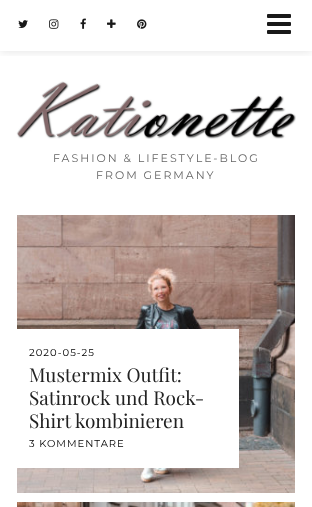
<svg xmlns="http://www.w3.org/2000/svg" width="312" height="507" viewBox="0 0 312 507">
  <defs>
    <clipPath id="clip1"><rect x="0" y="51" width="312" height="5"/></clipPath>
    <filter id="blur1" x="-50%" y="-200%" width="200%" height="500%"><feGaussianBlur stdDeviation="5"/></filter>
  </defs>
  <rect width="100%" height="100%" fill="#ffffff"/>
  <g clip-path="url(#clip1)">
    <rect x="0" y="1" width="312" height="51" fill="#1a1a1a" fill-opacity="0.1" filter="url(#blur1)"/>
  </g>
  <image x="18" y="20" width="10" height="8" href="img1.png"/>
  <image x="49" y="19" width="10" height="10" href="img2.png"/>
  <image x="80" y="18" width="6" height="11" href="img3.png"/>
  <image x="107" y="19" width="9" height="9" href="img4.png"/>
  <image x="137" y="19" width="10" height="10" href="img5.png"/>
  <image x="267" y="14" width="24" height="20" href="img6.png"/>
  <image x="16" y="81" width="280" height="58" href="img7.png"/>
  <text x="53" y="162" font-family="Montserrat" font-size="11" font-weight="100" letter-spacing="2" fill="#666666">FASHION &amp; LIFESTYLE-BLOG</text>
  <text x="96" y="179" font-family="Montserrat" font-size="11" font-weight="100" letter-spacing="2" fill="#666666">FROM GERMANY</text>
  <image x="17" y="215" width="278" height="278" href="img8.png"/>
  <rect x="17" y="329" width="222" height="139" fill="#ffffff"/>
  <text x="29" y="356" font-family="Montserrat" font-size="10" font-weight="100" letter-spacing="1" fill="#000000">2020-05-25</text>
  <text x="29" y="382" font-family="Playfair Display" font-size="19" fill="#222222">Mustermix Outfit:</text>
  <text x="29" y="405" font-family="Playfair Display" font-size="19" fill="#222222">Satinrock und Rock-</text>
  <text x="29" y="428" font-family="Playfair Display" font-size="19" fill="#222222">Shirt kombinieren</text>
  <text x="29" y="447" font-family="Montserrat" font-size="10" font-weight="100" letter-spacing="1" fill="#000000">3 KOMMENTARE</text>
  <image x="17" y="502" width="278" height="5" href="img9.png"/>
</svg>
